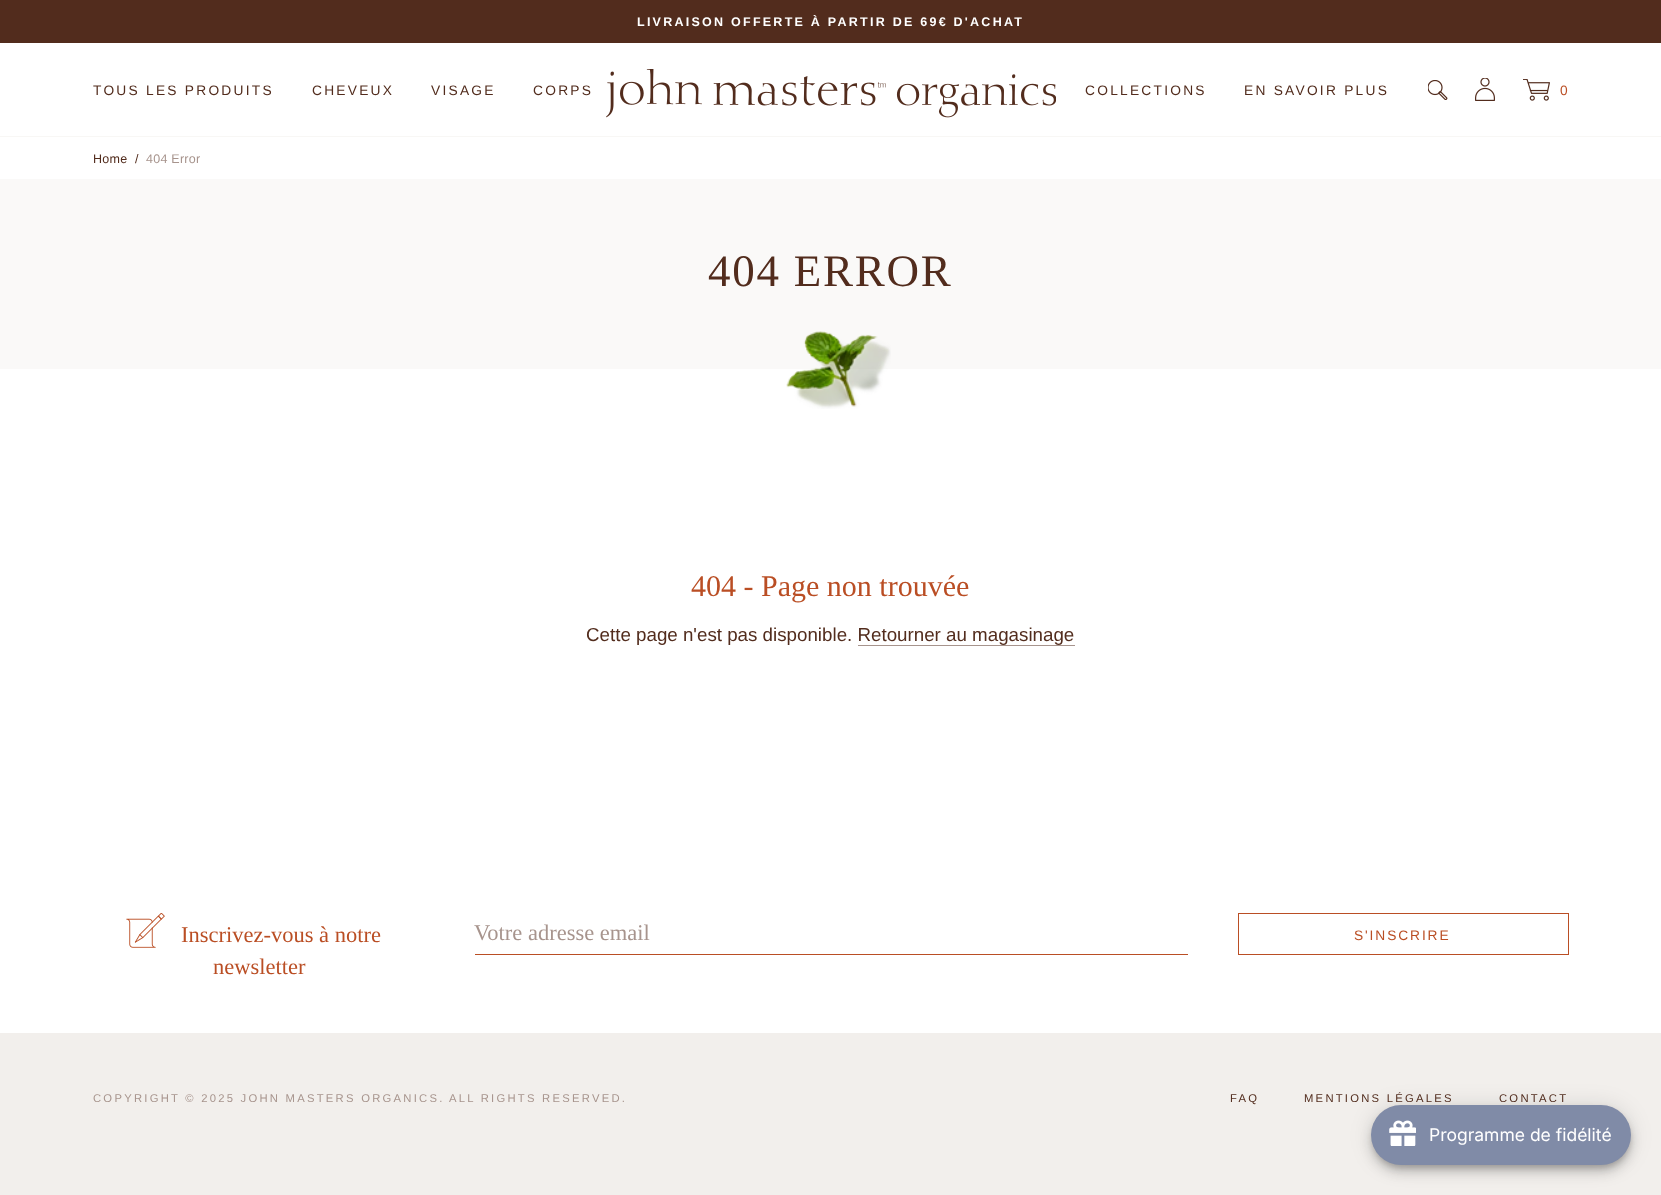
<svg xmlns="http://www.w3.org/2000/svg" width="1661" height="1195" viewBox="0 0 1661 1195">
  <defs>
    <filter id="blur1" x="-50%" y="-200%" width="200%" height="500%"><feGaussianBlur stdDeviation="11"/></filter>
    <filter id="blur2" x="-50%" y="-200%" width="200%" height="500%"><feGaussianBlur stdDeviation="6"/></filter>
    <filter id="blur3" x="-50%" y="-200%" width="200%" height="500%"><feGaussianBlur stdDeviation="3"/></filter>
  </defs>
  <rect width="100%" height="100%" fill="#f2efec"/>
  <rect x="0" y="0" width="1661" height="43" fill="#522c1d"/>
  <text x="637" y="26" font-family="Liberation Sans" font-size="12.5" font-weight="bold" letter-spacing="2.25" fill="#ffffff">LIVRAISON OFFERTE À PARTIR DE 69€ D'ACHAT</text>
  <rect x="0" y="43" width="1661" height="93" fill="#ffffff"/>
  <text x="93" y="95" font-family="Liberation Sans" font-size="13.75" letter-spacing="2.25" fill="#522c1d">TOUS LES PRODUITS</text>
  <text x="312" y="95" font-family="Liberation Sans" font-size="13.75" letter-spacing="2.25" fill="#522c1d">CHEVEUX</text>
  <text x="431" y="95" font-family="Liberation Sans" font-size="13.75" letter-spacing="2.25" fill="#522c1d">VISAGE</text>
  <text x="533" y="95" font-family="Liberation Sans" font-size="13.75" letter-spacing="2.25" fill="#522c1d">CORPS</text>
  <image x="606" y="69" width="450" height="49" href="img1.png"/>
  <text x="1085" y="95" font-family="Liberation Sans" font-size="13.75" letter-spacing="2.25" fill="#522c1d">COLLECTIONS</text>
  <text x="1244" y="95" font-family="Liberation Sans" font-size="13.75" letter-spacing="2.25" fill="#522c1d">EN SAVOIR PLUS</text>
  <image x="1428" y="80" width="20" height="20" href="img2.png"/>
  <image x="1475" y="78" width="20" height="23" href="img3.png"/>
  <image x="1523" y="79" width="27" height="22" href="img4.png"/>
  <text x="1560" y="95" font-family="Liberation Sans" font-size="13.75" letter-spacing="1" fill="#ba4e24">0</text>
  <rect x="0" y="137" width="1661" height="896" fill="#ffffff"/>
  <rect x="0" y="136" width="1661" height="1" fill="#f8f7f5"/>
  <text x="93" y="163" font-family="Liberation Sans" font-size="12.5" letter-spacing="0.25" fill="#522c1d">Home</text>
  <text x="135" y="163" font-family="Liberation Sans" font-size="12.5" letter-spacing="0.25" fill="#522c1d">/</text>
  <text x="146" y="163" font-family="Liberation Sans" font-size="12.5" letter-spacing="0.25" fill="#a7948d">404 Error</text>
  <rect x="0" y="179" width="1661" height="190" fill="#faf9f8"/>
  <text x="708" y="286" font-family="Liberation Serif" font-size="45" letter-spacing="1.75" fill="#522c1d">404 ERROR</text>
  <image x="786" y="331" width="105" height="78" href="img5.png"/>
  <text x="691" y="596" font-family="Liberation Serif" font-size="30" fill="#ba4e24">404 - Page non trouvée</text>
  <text x="586" y="641" font-family="Liberation Sans" font-size="18.75" fill="#522c1d">Cette page n'est pas disponible. Retourner au magasinage</text>
  <rect x="858" y="645" width="217" height="1" fill="#a7948d"/>
  <image x="126" y="913" width="39" height="35" href="img6.png"/>
  <text x="181" y="942" font-family="Liberation Serif" font-size="22.5" fill="#ba4e24">Inscrivez-vous à notre</text>
  <text x="213" y="974" font-family="Liberation Serif" font-size="22.5" fill="#ba4e24">newsletter</text>
  <rect x="475" y="954" width="713" height="1" fill="#ba4e24"/>
  <text x="474" y="940" font-family="Liberation Serif" font-size="22.5" fill="#a7948d">Votre adresse email</text>
  <rect x="1238.5" y="913.5" width="330" height="41" fill="none" stroke="#ba4e24"/>
  <text x="1354" y="940" font-family="Liberation Sans" font-size="13.75" letter-spacing="1.9" fill="#ba4e24">S'INSCRIRE</text>
  <text x="93" y="1102" font-family="Liberation Sans" font-size="11.25" letter-spacing="2.25" fill="#a7948d">COPYRIGHT © 2025 JOHN MASTERS ORGANICS.</text>
  <text x="449" y="1102" font-family="Liberation Sans" font-size="11.25" letter-spacing="2.25" fill="#a7948d">ALL RIGHTS RESERVED.</text>
  <text x="1230" y="1102" font-family="Liberation Sans" font-size="11.25" letter-spacing="2.25" fill="#522c1d">FAQ</text>
  <text x="1304" y="1102" font-family="Liberation Sans" font-size="11.25" letter-spacing="2.25" fill="#522c1d">MENTIONS LÉGALES</text>
  <text x="1499" y="1102" font-family="Liberation Sans" font-size="11.25" letter-spacing="2.25" fill="#522c1d">CONTACT</text>
  <rect x="1371" y="1106" width="260" height="60" rx="30" fill="#000000" fill-opacity="0.12" filter="url(#blur1)"/>
  <rect x="1371" y="1113" width="260" height="60" rx="30" fill="#000000" fill-opacity="0.14" filter="url(#blur2)"/>
  <rect x="1373" y="1110" width="257" height="58" rx="29" fill="#000000" fill-opacity="0.2" filter="url(#blur3)"/>
  <rect x="1371" y="1105" width="260" height="60" rx="30" fill="#808ba7"/>
  <image x="1389" y="1120" width="27" height="26" href="img7.png"/>
  <text x="1429" y="1141" font-family="Inter" font-size="17.5" fill="#ffffff">Programme de fidélité</text>
</svg>
